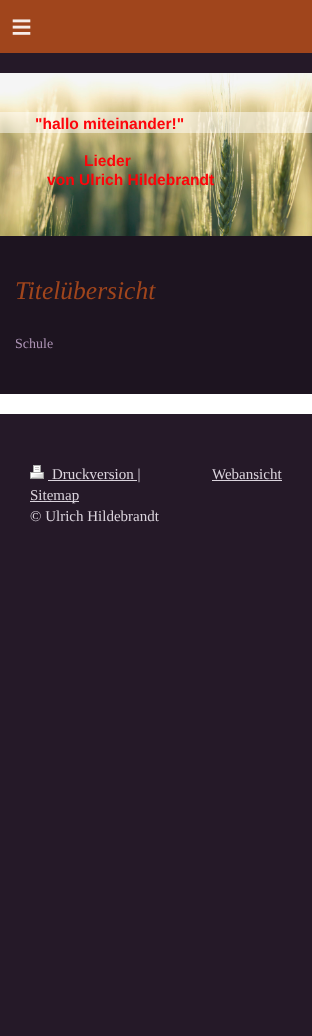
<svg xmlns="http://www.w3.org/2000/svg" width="312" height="1036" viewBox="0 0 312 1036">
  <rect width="100%" height="100%" fill="#251928"/>
  <rect x="0" y="0" width="312" height="53" fill="#a0451c"/>
  <text x="11" y="39" font-family="Liberation Sans" font-size="36" letter-spacing="10" fill="#f6ece8">≡</text>
  <image x="0" y="73" width="312" height="163" href="img1.png"/>
  <rect x="0" y="112" width="312" height="21" fill="#ffffff" fill-opacity="0.5"/>
  <text x="35" y="129" font-family="Liberation Sans" font-size="15.6" font-weight="bold" fill="#fd040a">"hallo miteinander!"</text>
  <text x="84" y="166" font-family="Liberation Sans" font-size="15.6" font-weight="bold" fill="#fd040a">Lieder</text>
  <text x="47" y="185" font-family="Liberation Sans" font-size="15.6" font-weight="bold" fill="#fd040a">von Ulrich Hildebrandt</text>
  <rect x="0" y="236" width="312" height="158" fill="#1d1420"/>
  <text x="15" y="299" font-family="Liberation Serif" font-size="25.5" font-style="italic" fill="#a0451c">Titelübersicht</text>
  <text x="15" y="348" font-family="Liberation Serif" font-size="14" fill="#ac93b4">Schule</text>
  <rect x="0" y="394" width="312" height="20" fill="#ffffff"/>
  <image x="30" y="465" width="14" height="14" href="img2.png"/>
  <rect x="48" y="480" width="89" height="1" fill="#dbd4dd"/>
  <text x="52" y="479" font-family="Liberation Serif" font-size="15" fill="#dbd4dd">Druckversion |</text>
  <rect x="30" y="501" width="49" height="1" fill="#dbd4dd"/>
  <text x="30" y="500" font-family="Liberation Serif" font-size="15" fill="#dbd4dd">Sitemap</text>
  <text x="30" y="521" font-family="Liberation Serif" font-size="15" fill="#dbd4dd">© Ulrich Hildebrandt</text>
  <text x="212" y="479" font-family="Liberation Serif" font-size="15" fill="#dbd4dd">Webansicht</text>
  <rect x="212" y="480" width="70" height="1" fill="#dbd4dd"/>
</svg>
